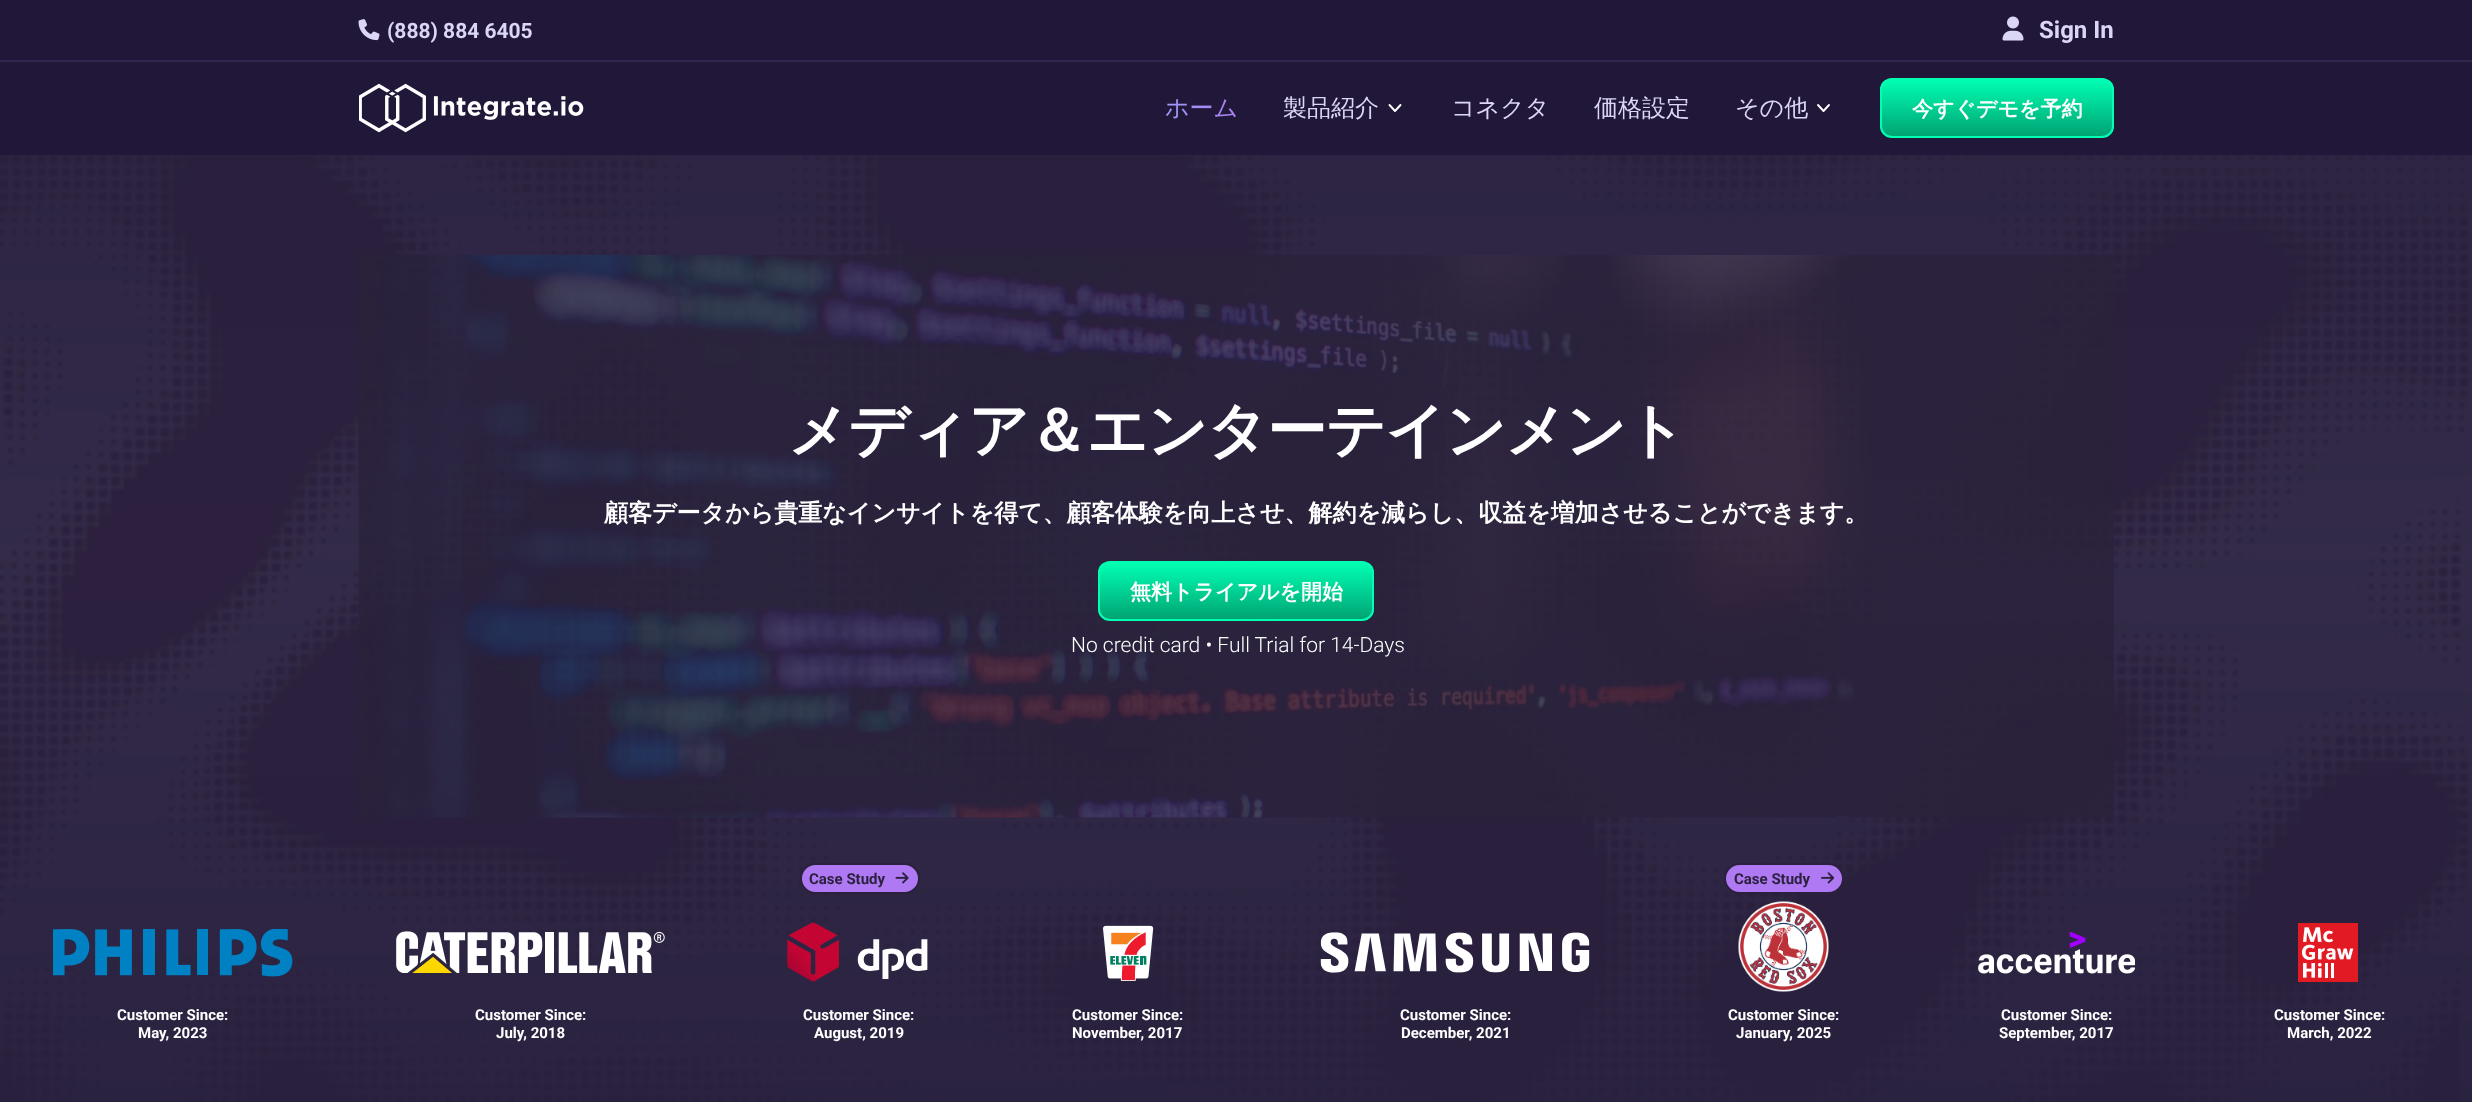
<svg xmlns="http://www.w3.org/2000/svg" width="2472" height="1102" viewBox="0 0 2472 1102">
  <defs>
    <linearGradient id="g1" gradientUnits="userSpaceOnUse" x1="1165" y1="138" x2="1238" y2="78"><stop offset="0.03" stop-color="#9aa2f7"/><stop offset="0.88" stop-color="#ae79f3"/></linearGradient>
    <clipPath id="clip1"><rect x="1880" y="78" width="234" height="60" rx="12"/></clipPath>
    <linearGradient id="g2" gradientUnits="userSpaceOnUse" x1="1997" y1="79" x2="1997" y2="137"><stop offset="0" stop-color="#01ffb3"/><stop offset="1" stop-color="#00a272"/></linearGradient>
    <clipPath id="clip2"><rect x="1098" y="561" width="276" height="60" rx="12"/></clipPath>
    <linearGradient id="g3" gradientUnits="userSpaceOnUse" x1="1236" y1="563" x2="1236" y2="620"><stop offset="0" stop-color="#01ffb3"/><stop offset="1" stop-color="#00a272"/></linearGradient>
  </defs>
  <rect width="100%" height="100%" fill="#ffffff"/>
  <image x="0" y="155" width="2472" height="947" href="img1.png"/>
  <rect x="0" y="0" width="2472" height="155" fill="#211738"/>
  <rect x="0" y="60" width="2472" height="2" fill="#332450"/>
  <image x="358" y="19" width="22" height="22" href="img2.png"/>
  <text x="387" y="38" font-family="Roboto" font-size="21" font-weight="bold" fill="#dbd6f5">(888) 884 6405</text>
  <image x="2002" y="16" width="22" height="25" href="img3.png"/>
  <text x="2039" y="38" font-family="Roboto" font-size="24" font-weight="bold" fill="#dbd6f5">Sign In</text>
  <image x="359" y="83" width="225" height="50" href="img4.png"/>
  <text x="1165" y="116" font-family="WenQuanYi Zen Hei" font-size="24" font-weight="500" fill="url(#g1)">ホーム</text>
  <text x="1283" y="116" font-family="WenQuanYi Zen Hei" font-size="24" font-weight="500" fill="#dbd6f5">製品紹介</text>
  <path d="M1400.5 105L1395 111L1389.5 105" fill="none" stroke="#ffffff" stroke-width="1.9" stroke-linecap="round" stroke-linejoin="round"/>
  <text x="1451" y="116" font-family="WenQuanYi Zen Hei" font-size="24" font-weight="500" fill="#dbd6f5">コネクタ</text>
  <text x="1594" y="116" font-family="WenQuanYi Zen Hei" font-size="24" font-weight="500" fill="#dbd6f5">価格設定</text>
  <text x="1735" y="116" font-family="WenQuanYi Zen Hei" font-size="24" font-weight="500" fill="#dbd6f5">その他</text>
  <path d="M1829 105L1823.5 111L1818 105" fill="none" stroke="#ffffff" stroke-width="1.9" stroke-linecap="round" stroke-linejoin="round"/>
  <g clip-path="url(#clip1)">
    <rect x="1880" y="80" width="234" height="57" fill="url(#g2)"/>
  </g>
  <rect x="1881" y="79" width="232" height="58" rx="11" fill="none" stroke="#01ffb3" stroke-width="2"/>
  <text x="1912" y="116" font-family="WenQuanYi Zen Hei" font-size="21" font-weight="bold" fill="#ffffff">今すぐデモを予約</text>
  <image x="358" y="255" width="1756" height="563" href="img5.png"/>
  <rect x="359" y="255" width="1755" height="563" fill="#2a2241" fill-opacity="0.6"/>
  <text x="788" y="451" font-family="WenQuanYi Zen Hei" font-size="60" font-weight="bold" letter-spacing="-1.4" fill="#ffffff">メディア＆エンターテインメント</text>
  <text x="604" y="521" font-family="WenQuanYi Zen Hei" font-size="24" font-weight="bold" fill="#ffffff">顧客データから貴重なインサイトを得て、顧客体験を向上させ、解約を減らし、収益を増加させることができます。</text>
  <g clip-path="url(#clip2)">
    <rect x="1098" y="563" width="276" height="57" fill="url(#g3)"/>
  </g>
  <rect x="1099" y="562" width="274" height="58" rx="11" fill="none" stroke="#01ffb3" stroke-width="2"/>
  <text x="1130" y="599" font-family="WenQuanYi Zen Hei" font-size="21" font-weight="bold" fill="#ffffff">無料トライアルを開始</text>
  <text x="1071" y="652" font-family="Roboto" font-size="21" font-weight="300" fill="#ffffff">No credit card • Full Trial for 14-Days</text>
  <image x="53" y="929" width="240" height="48" href="img6.png"/>
  <text x="117" y="1020" font-family="Roboto" font-size="15" font-weight="bold" fill="#ffffff">Customer Since:</text>
  <text x="138" y="1038" font-family="Roboto" font-size="15" font-weight="bold" fill="#ffffff">May, 2023</text>
  <image x="396" y="931" width="269" height="42" href="img7.png"/>
  <text x="475" y="1020" font-family="Roboto" font-size="15" font-weight="bold" fill="#ffffff">Customer Since:</text>
  <text x="496" y="1038" font-family="Roboto" font-size="15" font-weight="bold" fill="#ffffff">July, 2018</text>
  <rect x="801" y="864" width="118" height="29" rx="14.5" fill="#ae79f3" stroke="#2b213f" stroke-width="2"/>
  <text x="809" y="884" font-family="Roboto" font-size="15" font-weight="bold" fill="#2b213f">Case Study</text>
  <image x="895" y="872" width="14" height="12" href="img8.png"/>
  <image x="787" y="922" width="141" height="60" href="img9.png"/>
  <text x="803" y="1020" font-family="Roboto" font-size="15" font-weight="bold" fill="#ffffff">Customer Since:</text>
  <text x="814" y="1038" font-family="Roboto" font-size="15" font-weight="bold" fill="#ffffff">August, 2019</text>
  <image x="1103" y="925" width="51" height="56" href="img10.png"/>
  <text x="1072" y="1020" font-family="Roboto" font-size="15" font-weight="bold" fill="#ffffff">Customer Since:</text>
  <text x="1072" y="1038" font-family="Roboto" font-size="15" font-weight="bold" fill="#ffffff">November, 2017</text>
  <image x="1320" y="932" width="270" height="41" href="img11.png"/>
  <text x="1400" y="1020" font-family="Roboto" font-size="15" font-weight="bold" fill="#ffffff">Customer Since:</text>
  <text x="1401" y="1038" font-family="Roboto" font-size="15" font-weight="bold" fill="#ffffff">December, 2021</text>
  <rect x="1725" y="864" width="118" height="29" rx="14.5" fill="#ae79f3" stroke="#2b213f" stroke-width="2"/>
  <text x="1734" y="884" font-family="Roboto" font-size="15" font-weight="bold" fill="#2b213f">Case Study</text>
  <image x="1821" y="872" width="14" height="12" href="img12.png"/>
  <image x="1738" y="901" width="91" height="91" href="img13.png"/>
  <text x="1728" y="1020" font-family="Roboto" font-size="15" font-weight="bold" fill="#ffffff">Customer Since:</text>
  <text x="1736" y="1038" font-family="Roboto" font-size="15" font-weight="bold" fill="#ffffff">January, 2025</text>
  <image x="1978" y="932" width="157" height="42" href="img14.png"/>
  <text x="2001" y="1020" font-family="Roboto" font-size="15" font-weight="bold" fill="#ffffff">Customer Since:</text>
  <text x="1999" y="1038" font-family="Roboto" font-size="15" font-weight="bold" fill="#ffffff">September, 2017</text>
  <image x="2298" y="923" width="60" height="59" href="img15.png"/>
  <text x="2274" y="1020" font-family="Roboto" font-size="15" font-weight="bold" fill="#ffffff">Customer Since:</text>
  <text x="2287" y="1038" font-family="Roboto" font-size="15" font-weight="bold" fill="#ffffff">March, 2022</text>
</svg>
